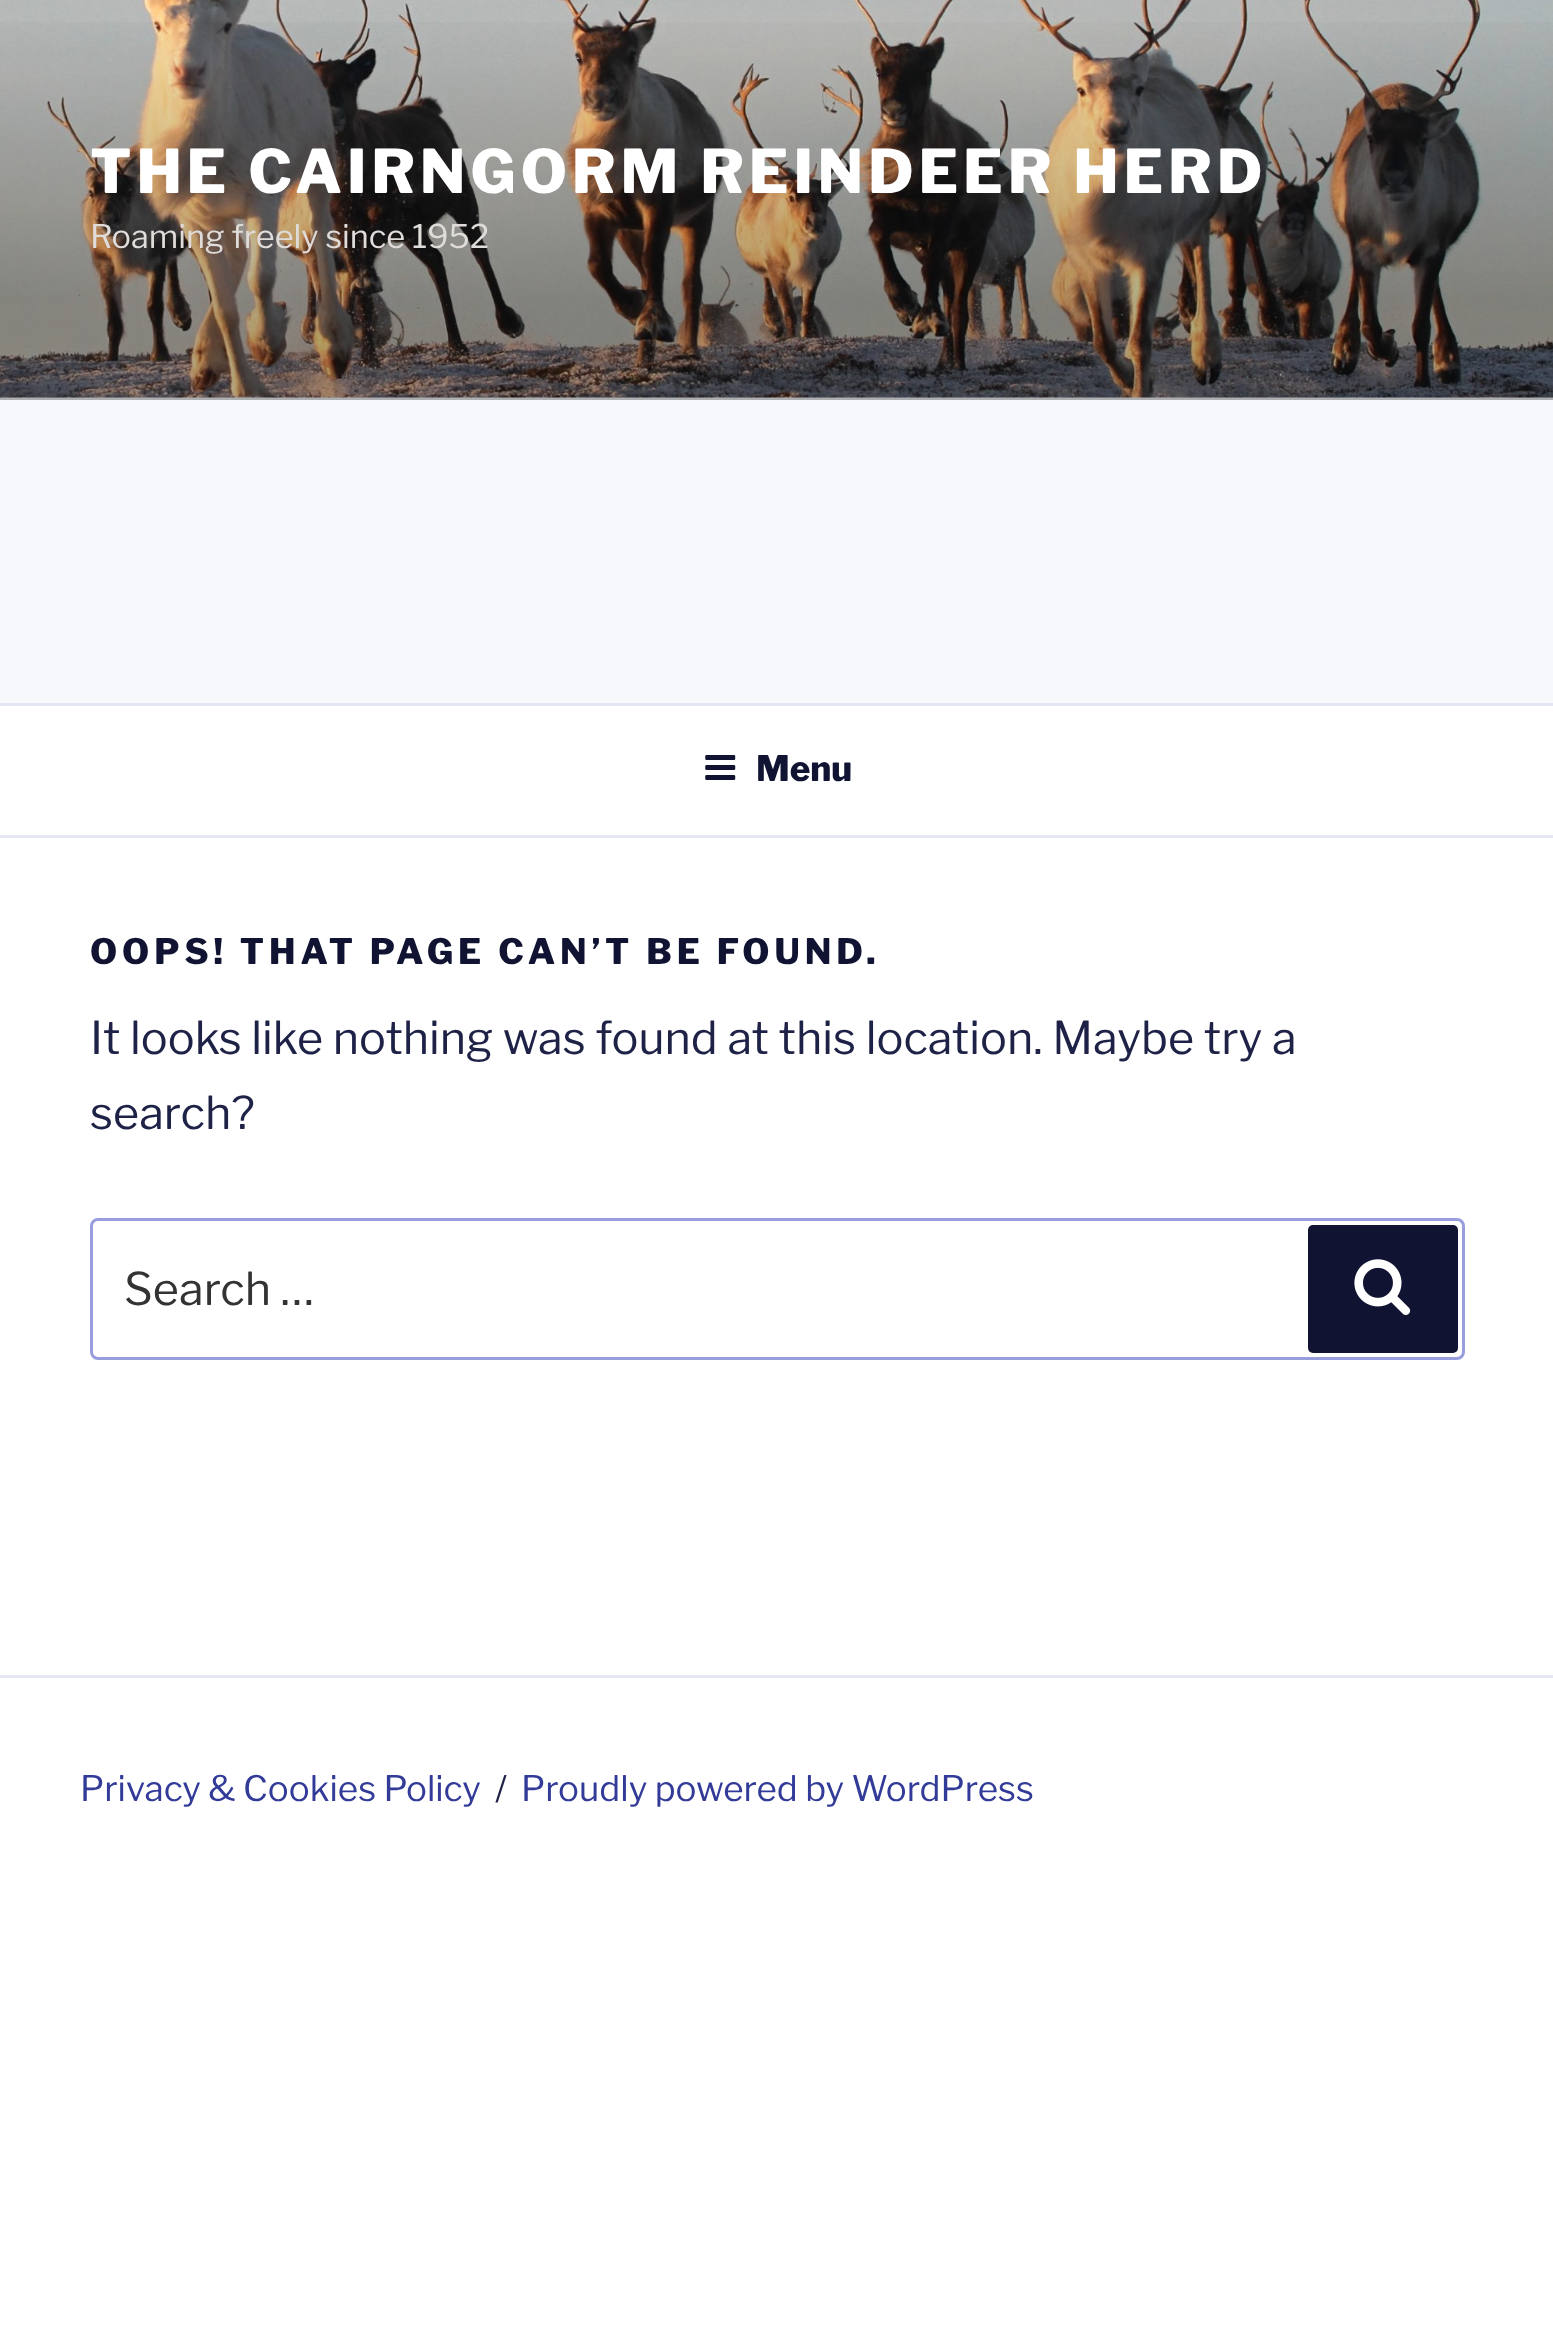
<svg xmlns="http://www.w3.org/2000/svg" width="1553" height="2326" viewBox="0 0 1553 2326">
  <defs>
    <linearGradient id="g1" gradientUnits="userSpaceOnUse" x1="778" y1="0" x2="778" y2="400"><stop offset="0" stop-color="#000000" stop-opacity="0"/><stop offset="0.75" stop-color="#000000" stop-opacity="0.3"/><stop offset="1" stop-color="#000000" stop-opacity="0.3"/></linearGradient>
  </defs>
  <rect width="100%" height="100%" fill="#ffffff"/>
  <rect x="0" y="397" width="1553" height="306" fill="#f7f8fc"/>
  <image x="0" y="0" width="1553" height="398" href="img1.png"/>
  <rect x="0" y="22" width="1553" height="378" fill="url(#g1)"/>
  <text x="90" y="193" font-family="Libre Franklin" font-size="60" font-weight="100" letter-spacing="4.8" fill="#ffffff">THE CAIRNGORM REINDEER HERD</text>
  <text x="90" y="248" font-family="'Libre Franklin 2'" font-size="32.5" font-weight="100" fill="#dfdcda">Roaming freely since 1952</text>
  <rect x="0" y="703" width="1553" height="3" fill="#e4e6f6"/>
  <rect x="0" y="835" width="1553" height="3" fill="#e4e6f6"/>
  <image x="705" y="755" width="31" height="25" href="img2.png"/>
  <text x="756" y="781" font-family="Libre Franklin" font-size="35" font-weight="100" fill="#111332">Menu</text>
  <text x="90" y="964" font-family="Libre Franklin" font-size="35" font-weight="100" letter-spacing="4.9" fill="#111332">OOPS! THAT PAGE CAN’T BE FOUND.</text>
  <text x="90" y="1054" font-family="'Libre Franklin 2'" font-size="45" font-weight="100" fill="#1f2247">It looks like nothing was found at this location. Maybe try a</text>
  <text x="90" y="1129" font-family="'Libre Franklin 2'" font-size="45" font-weight="100" fill="#1f2247">search?</text>
  <rect x="91.5" y="1219.5" width="1372" height="139" rx="6.5" fill="none" stroke="#989ddd" stroke-width="3"/>
  <text x="124" y="1305" font-family="'Libre Franklin 2'" font-size="45" font-weight="100" fill="#333333">Search …</text>
  <rect x="1308" y="1225" width="150" height="128" rx="5" fill="#111332"/>
  <image x="1354" y="1259" width="57" height="56" href="img3.png"/>
  <rect x="0" y="1675" width="1553" height="3" fill="#e4e6f6"/>
  <text x="80" y="1801" font-family="'Libre Franklin 2'" font-size="35" font-weight="100" fill="#333b99">Privacy &amp; Cookies Policy</text>
  <text x="495" y="1801" font-family="'Libre Franklin 2'" font-size="35" font-weight="100" fill="#1f2247">/</text>
  <text x="521" y="1801" font-family="'Libre Franklin 2'" font-size="35" font-weight="100" fill="#333b99">Proudly powered by WordPress</text>
</svg>
